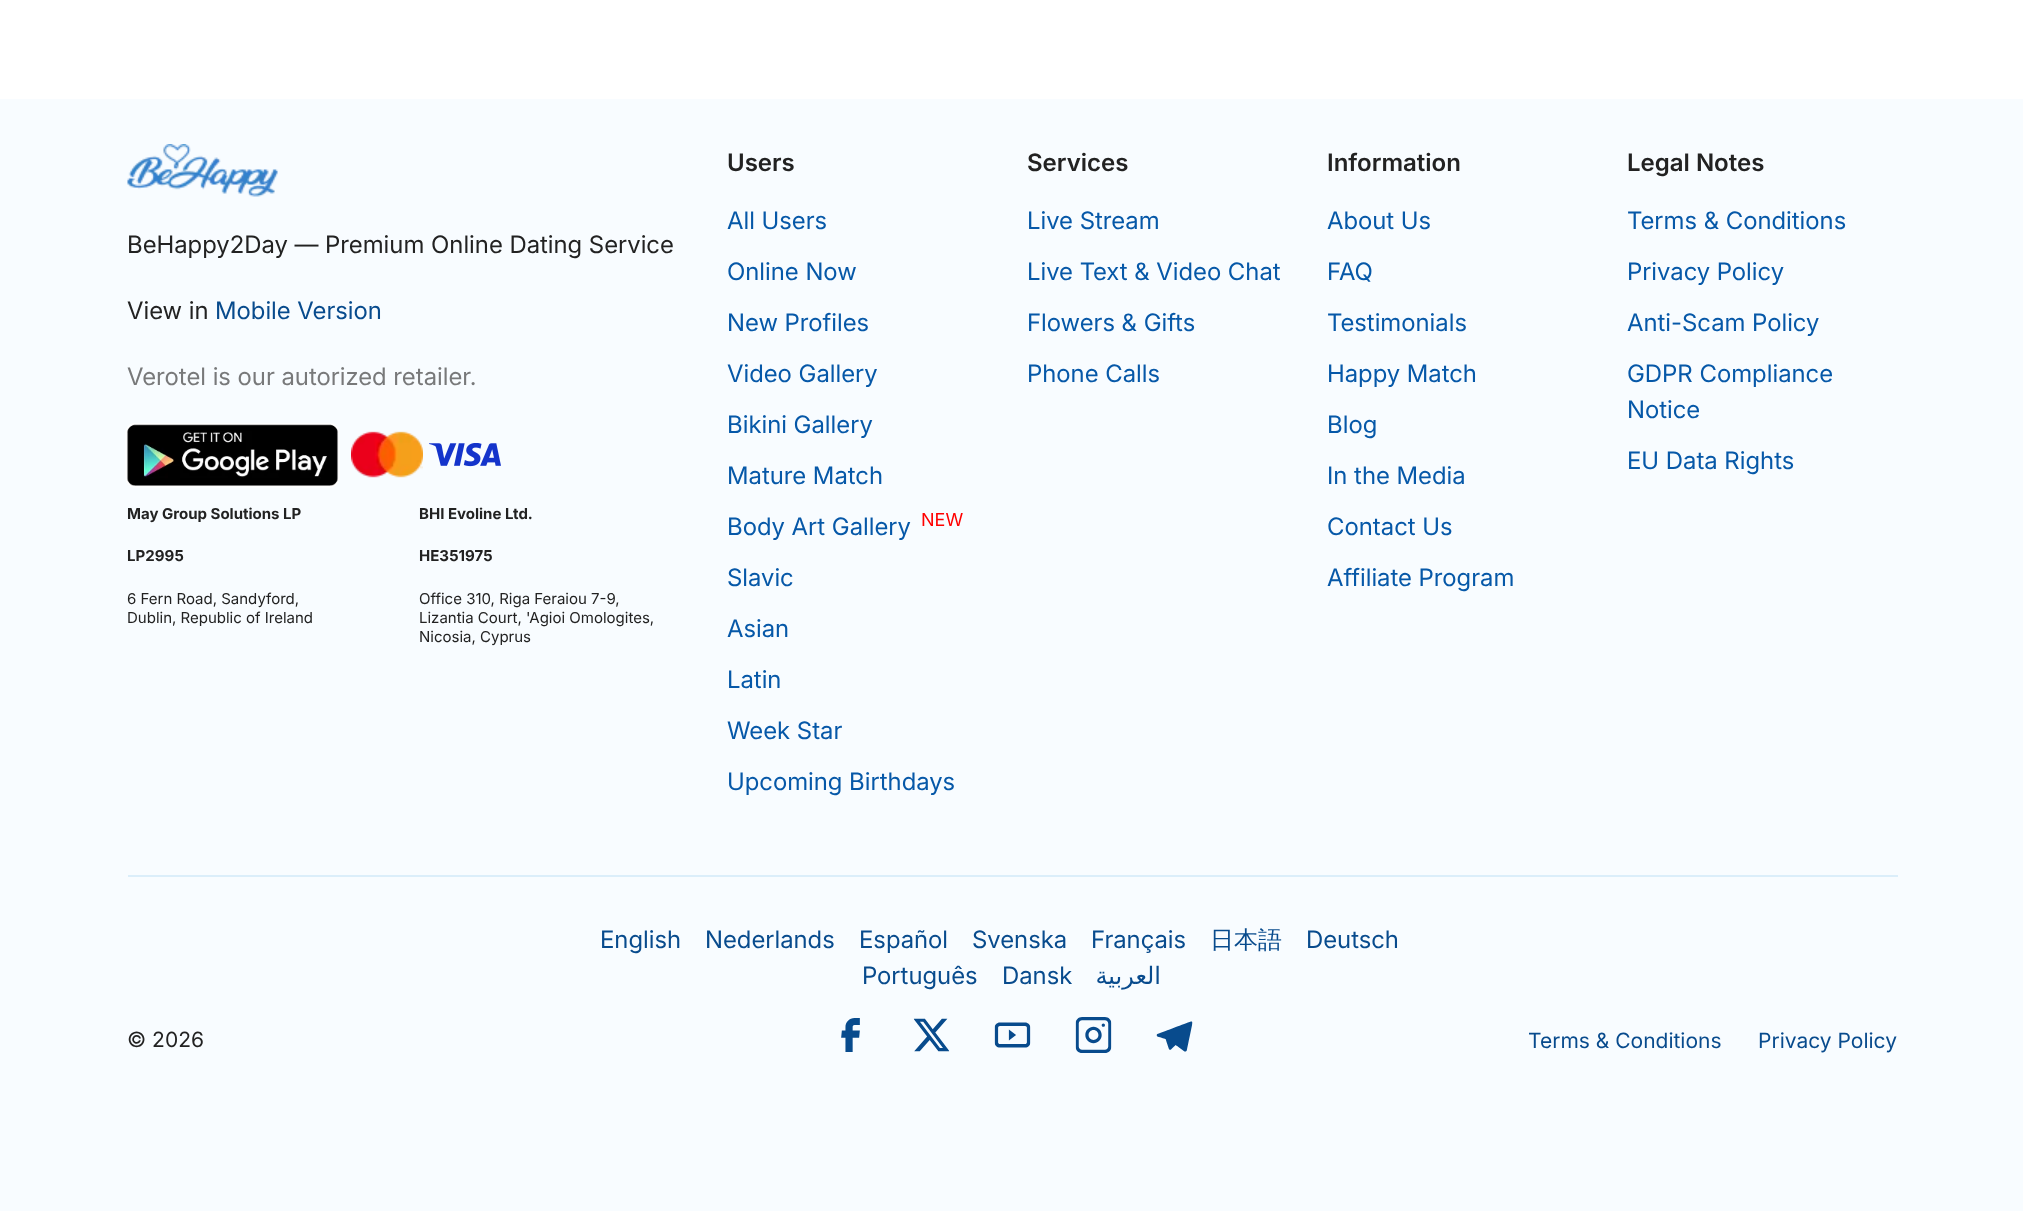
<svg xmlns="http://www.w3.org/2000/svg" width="2023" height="1211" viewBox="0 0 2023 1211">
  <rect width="100%" height="100%" fill="#ffffff"/>
  <rect x="0" y="99" width="2023" height="1112" fill="#f8fcff"/>
  <image x="127" y="144" width="151" height="53" href="img1.png"/>
  <text x="127" y="253" font-family="Inter" font-size="24" fill="#222222">BeHappy2Day — Premium Online Dating Service</text>
  <text x="127" y="319" font-family="Inter" font-size="24" fill="#222222">View in</text>
  <text x="215" y="319" font-family="Inter" font-size="24" fill="#084b8d">Mobile Version</text>
  <text x="127" y="385" font-family="Inter" font-size="24" fill="#78797a">Verotel is our autorized retailer.</text>
  <image x="125" y="423" width="215" height="65" href="img2.png"/>
  <image x="351" y="431" width="72" height="47" href="img3.png"/>
  <image x="429" y="443" width="72" height="24" href="img4.png"/>
  <text x="127" y="519" font-family="Inter" font-size="15" font-weight="bold" fill="#222222">May Group Solutions LP</text>
  <text x="127" y="561" font-family="Inter" font-size="15" font-weight="bold" fill="#222222">LP2995</text>
  <text x="127" y="604" font-family="'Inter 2'" font-size="15" fill="#222222">6 Fern Road, Sandyford,</text>
  <text x="127" y="623" font-family="'Inter 2'" font-size="15" fill="#222222">Dublin, Republic of Ireland</text>
  <text x="419" y="519" font-family="Inter" font-size="15" font-weight="bold" fill="#222222">BHI Evoline Ltd.</text>
  <text x="419" y="561" font-family="Inter" font-size="15" font-weight="bold" fill="#222222">HE351975</text>
  <text x="419" y="604" font-family="'Inter 2'" font-size="15" fill="#222222">Office 310, Riga Feraiou 7-9,</text>
  <text x="419" y="623" font-family="'Inter 2'" font-size="15" fill="#222222">Lizantia Court, 'Agioi Omologites,</text>
  <text x="419" y="642" font-family="'Inter 2'" font-size="15" fill="#222222">Nicosia, Cyprus</text>
  <text x="727" y="171" font-family="Inter" font-size="24" font-weight="600" fill="#222222">Users</text>
  <text x="727" y="229" font-family="Inter" font-size="24" fill="#0658a8">All Users</text>
  <text x="727" y="280" font-family="Inter" font-size="24" fill="#0658a8">Online Now</text>
  <text x="727" y="331" font-family="Inter" font-size="24" fill="#0658a8">New Profiles</text>
  <text x="727" y="382" font-family="Inter" font-size="24" fill="#0658a8">Video Gallery</text>
  <text x="727" y="433" font-family="Inter" font-size="24" fill="#0658a8">Bikini Gallery</text>
  <text x="727" y="484" font-family="Inter" font-size="24" fill="#0658a8">Mature Match</text>
  <text x="727" y="535" font-family="Inter" font-size="24" fill="#0658a8">Body Art Gallery</text>
  <text x="921" y="526" font-family="'Inter 2'" font-size="18" fill="#ff0000">NEW</text>
  <text x="727" y="586" font-family="Inter" font-size="24" fill="#0658a8">Slavic</text>
  <text x="727" y="637" font-family="Inter" font-size="24" fill="#0658a8">Asian</text>
  <text x="727" y="688" font-family="Inter" font-size="24" fill="#0658a8">Latin</text>
  <text x="727" y="739" font-family="Inter" font-size="24" fill="#0658a8">Week Star</text>
  <text x="727" y="790" font-family="Inter" font-size="24" fill="#0658a8">Upcoming Birthdays</text>
  <text x="1027" y="171" font-family="Inter" font-size="24" font-weight="600" fill="#222222">Services</text>
  <text x="1027" y="229" font-family="Inter" font-size="24" fill="#0658a8">Live Stream</text>
  <text x="1027" y="280" font-family="Inter" font-size="24" fill="#0658a8">Live Text &amp; Video Chat</text>
  <text x="1027" y="331" font-family="Inter" font-size="24" fill="#0658a8">Flowers &amp; Gifts</text>
  <text x="1027" y="382" font-family="Inter" font-size="24" fill="#0658a8">Phone Calls</text>
  <text x="1327" y="171" font-family="Inter" font-size="24" font-weight="600" fill="#222222">Information</text>
  <text x="1327" y="229" font-family="Inter" font-size="24" fill="#0658a8">About Us</text>
  <text x="1327" y="280" font-family="Inter" font-size="24" fill="#0658a8">FAQ</text>
  <text x="1327" y="331" font-family="Inter" font-size="24" fill="#0658a8">Testimonials</text>
  <text x="1327" y="382" font-family="Inter" font-size="24" fill="#0658a8">Happy Match</text>
  <text x="1327" y="433" font-family="Inter" font-size="24" fill="#0658a8">Blog</text>
  <text x="1327" y="484" font-family="Inter" font-size="24" fill="#0658a8">In the Media</text>
  <text x="1327" y="535" font-family="Inter" font-size="24" fill="#0658a8">Contact Us</text>
  <text x="1327" y="586" font-family="Inter" font-size="24" fill="#0658a8">Affiliate Program</text>
  <text x="1627" y="171" font-family="Inter" font-size="24" font-weight="600" fill="#222222">Legal Notes</text>
  <text x="1627" y="229" font-family="Inter" font-size="24" fill="#0658a8">Terms &amp; Conditions</text>
  <text x="1627" y="280" font-family="Inter" font-size="24" fill="#0658a8">Privacy Policy</text>
  <text x="1627" y="331" font-family="Inter" font-size="24" fill="#0658a8">Anti-Scam Policy</text>
  <text x="1627" y="382" font-family="Inter" font-size="24" fill="#0658a8">GDPR Compliance</text>
  <text x="1627" y="418" font-family="Inter" font-size="24" fill="#0658a8">Notice</text>
  <text x="1627" y="469" font-family="Inter" font-size="24" fill="#0658a8">EU Data Rights</text>
  <rect x="128" y="875" width="1770" height="2" fill="#dbeefa"/>
  <text x="600" y="948" font-family="Inter" font-size="24" fill="#084b8d">English</text>
  <text x="705" y="948" font-family="Inter" font-size="24" fill="#084b8d">Nederlands</text>
  <text x="859" y="948" font-family="Inter" font-size="24" fill="#084b8d">Español</text>
  <text x="972" y="948" font-family="Inter" font-size="24" fill="#084b8d">Svenska</text>
  <text x="1091" y="948" font-family="Inter" font-size="24" fill="#084b8d">Français</text>
  <text x="1210" y="948" font-family="WenQuanYi Zen Hei" font-size="24" font-weight="500" fill="#084b8d">日本語</text>
  <text x="1306" y="948" font-family="Inter" font-size="24" fill="#084b8d">Deutsch</text>
  <text x="862" y="984" font-family="Inter" font-size="24" fill="#084b8d">Português</text>
  <text x="1002" y="984" font-family="Inter" font-size="24" fill="#084b8d">Dansk</text>
  <text x="1161" y="984" font-family="DejaVu Sans" font-size="24" direction="rtl" fill="#084b8d">العربية</text>
  <text x="127" y="1047" font-family="'Inter 2'" font-size="21" fill="#222222">© 2026</text>
  <image x="841" y="1018" width="19" height="34" href="img5.png"/>
  <image x="913" y="1018" width="37" height="34" href="img6.png"/>
  <image x="994" y="1022" width="37" height="26" href="img7.png"/>
  <image x="1075" y="1017" width="37" height="36" href="img8.png"/>
  <image x="1156" y="1021" width="37" height="31" href="img9.png"/>
  <text x="1528" y="1048" font-family="'Inter 2'" font-size="21" fill="#084b8d">Terms &amp; Conditions</text>
  <text x="1758" y="1048" font-family="'Inter 2'" font-size="21" fill="#084b8d">Privacy Policy</text>
</svg>
